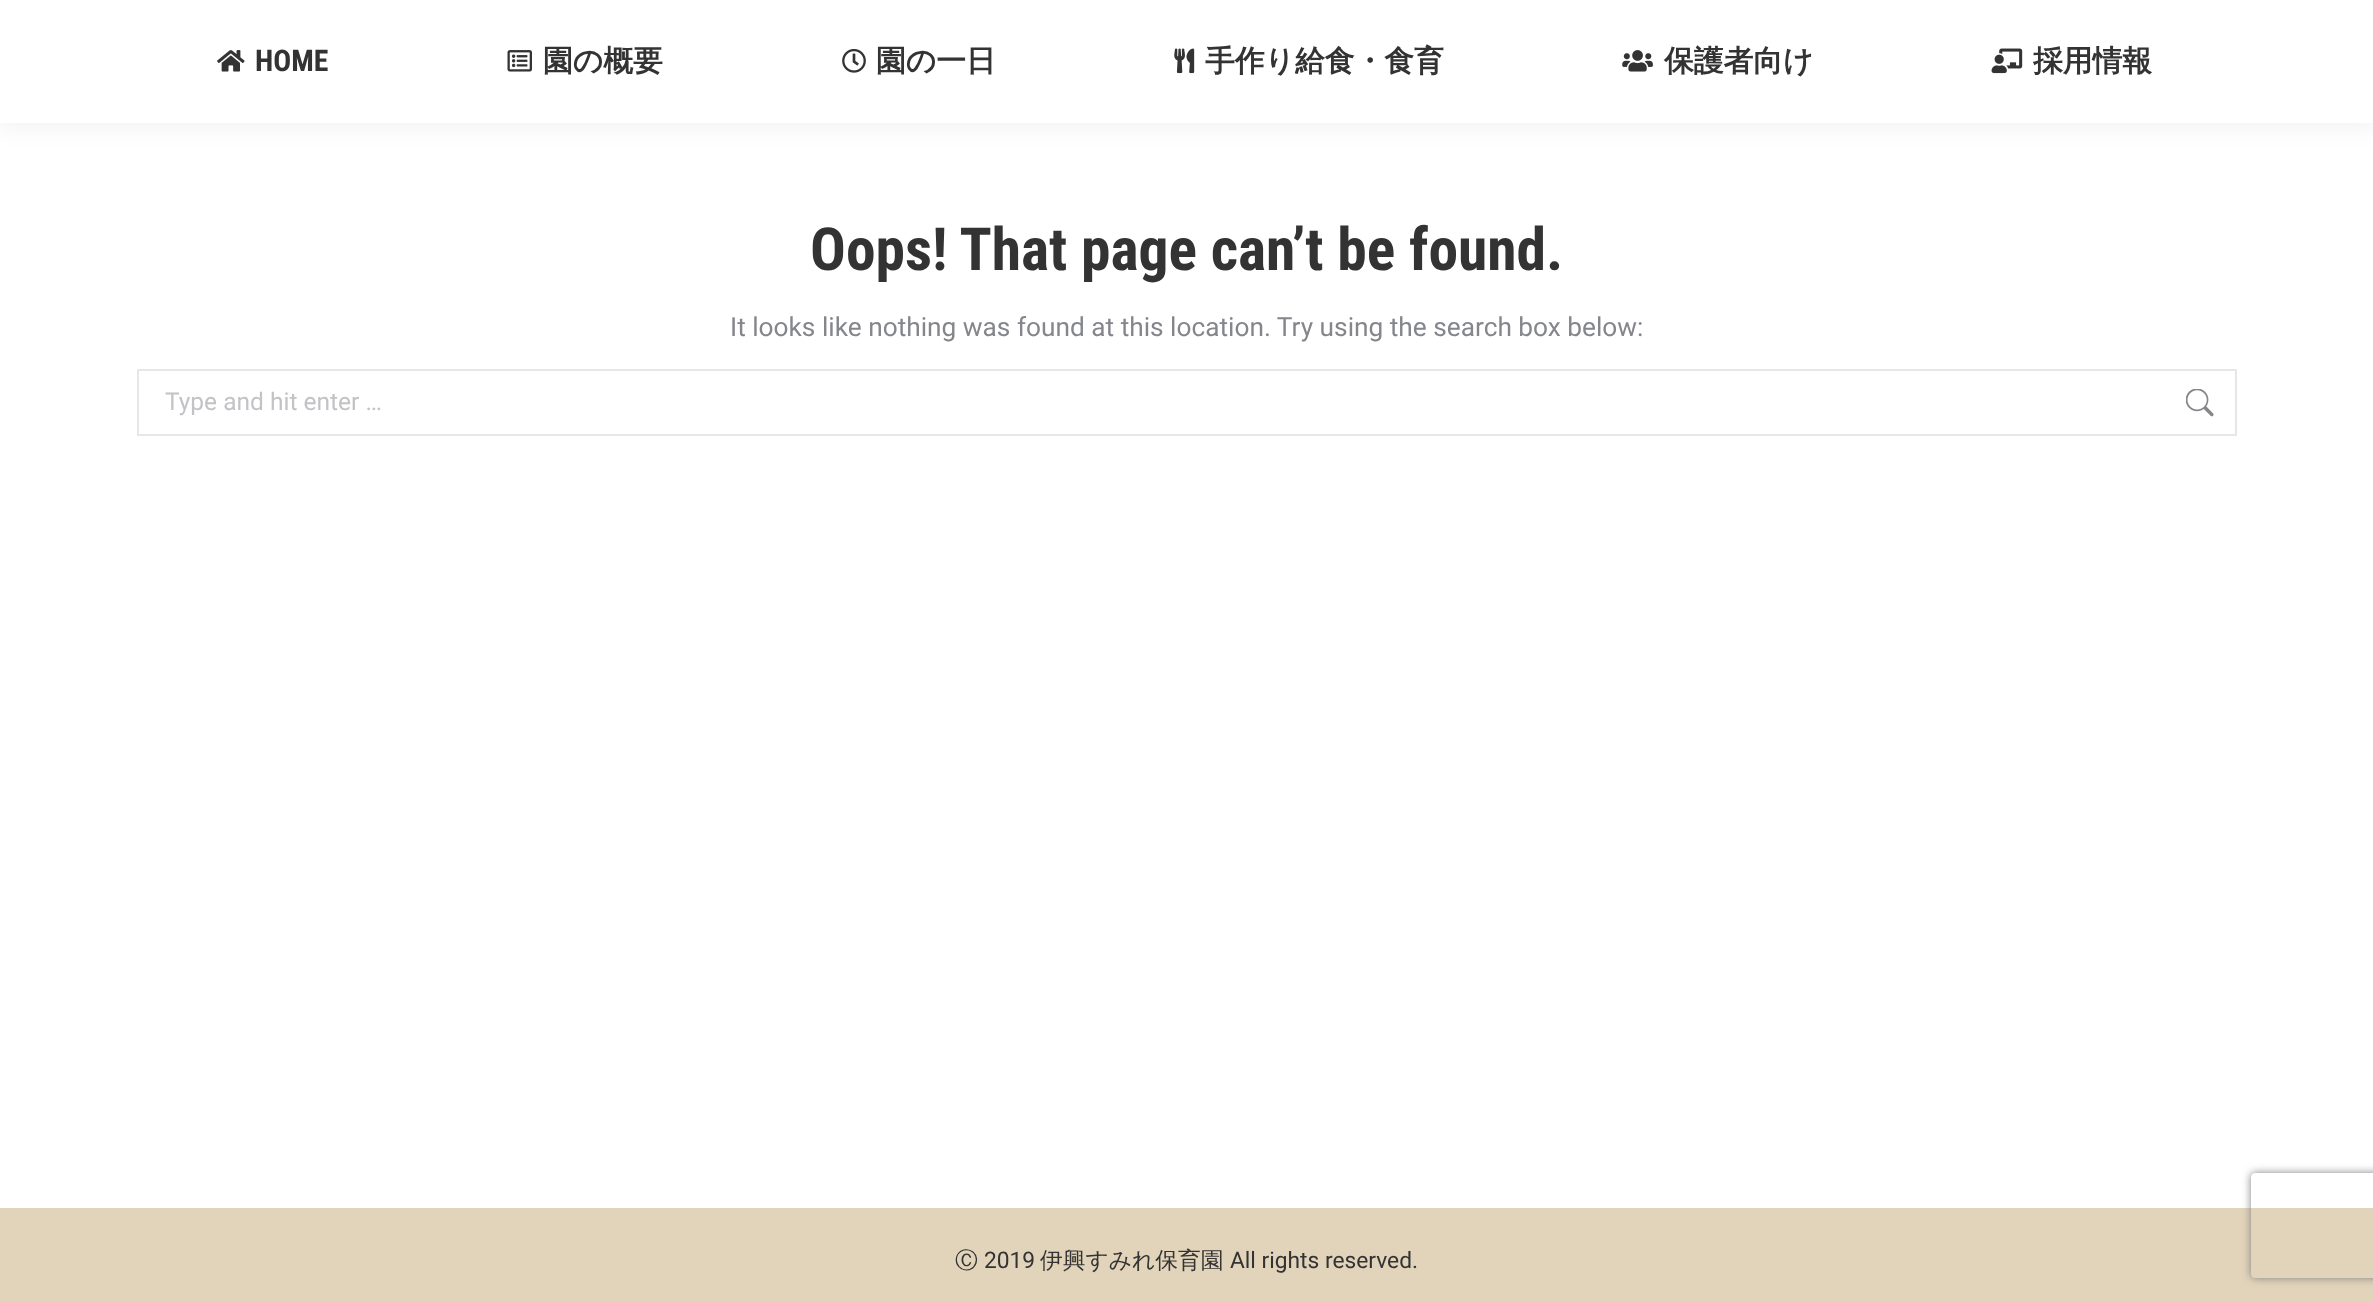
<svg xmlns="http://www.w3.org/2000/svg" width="2373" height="1302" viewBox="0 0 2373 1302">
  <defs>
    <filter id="blur1" x="-50%" y="-200%" width="200%" height="500%"><feGaussianBlur stdDeviation="13"/></filter>
    <clipPath id="clip1"><path d="M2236 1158H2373V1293H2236ZM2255 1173H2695C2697 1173 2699 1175 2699 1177V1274C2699 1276 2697 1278 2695 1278H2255C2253 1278 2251 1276 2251 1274V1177C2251 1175 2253 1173 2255 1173Z" clip-rule="evenodd"/></clipPath>
    <filter id="blur2" x="-50%" y="-200%" width="200%" height="500%"><feGaussianBlur stdDeviation="4.5"/></filter>
  </defs>
  <rect width="100%" height="100%" fill="#ffffff"/>
  <rect x="-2" y="-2" width="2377" height="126" fill="#000000" fill-opacity="0.07" filter="url(#blur1)"/>
  <rect x="0" y="0" width="2373" height="123" fill="#ffffff"/>
  <image x="217" y="50" width="28" height="22" href="img1.png"/>
  <text x="255" y="71" font-family="Roboto Condensed" font-size="29.75" font-weight="bold" fill="#333333">HOME</text>
  <image x="507" y="50" width="25" height="22" href="img2.png"/>
  <text x="543" y="71" font-family="WenQuanYi Zen Hei" font-size="29.75" font-weight="bold" fill="#333333">園の概要</text>
  <image x="842" y="49" width="24" height="24" href="img3.png"/>
  <text x="876" y="71" font-family="WenQuanYi Zen Hei" font-size="29.75" font-weight="bold" fill="#333333">園の一日</text>
  <image x="1174" y="48" width="21" height="26" href="img4.png"/>
  <text x="1205" y="71" font-family="WenQuanYi Zen Hei" font-size="29.75" font-weight="bold" fill="#333333">手作り給食・食育</text>
  <image x="1622" y="50" width="31" height="22" href="img5.png"/>
  <text x="1664" y="71" font-family="WenQuanYi Zen Hei" font-size="29.75" font-weight="bold" fill="#333333">保護者向け</text>
  <image x="1991" y="48" width="32" height="26" href="img6.png"/>
  <text x="2033" y="71" font-family="WenQuanYi Zen Hei" font-size="29.75" font-weight="bold" fill="#333333">採用情報</text>
  <text x="810" y="270" font-family="Roboto Condensed" font-size="59.5" font-weight="bold" fill="#333333">Oops! That page can’t be found.</text>
  <text x="730" y="336" font-family="Roboto" font-size="26.25" fill="#85868c">It looks like nothing was found at this location. Try using the search box below:</text>
  <rect x="138" y="370" width="2098" height="65" fill="none" stroke="#e7e7e7" stroke-width="2"/>
  <text x="165" y="410" font-family="Roboto" font-size="24.5" fill="#c2c3c6">Type and hit enter …</text>
  <image x="2186" y="389" width="28" height="28" href="img7.png"/>
  <rect x="0" y="1208" width="2373" height="94" fill="#e2d4ba"/>
  <text x="955" y="1268" font-family="WenQuanYi Zen Hei" font-size="22.75" font-weight="500" fill="#333333">Ⓒ</text>
  <text x="984" y="1268" font-family="Roboto" font-size="22.75" fill="#333333">2019</text>
  <text x="1040" y="1268" font-family="WenQuanYi Zen Hei" font-size="22.75" font-weight="500" fill="#333333">伊興すみれ保育園</text>
  <text x="1230" y="1268" font-family="Roboto" font-size="22.75" fill="#333333">All rights reserved.</text>
  <g clip-path="url(#clip1)">
    <rect x="2251" y="1173" width="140" height="105" rx="4" fill="#808080" filter="url(#blur2)"/>
  </g>
</svg>
